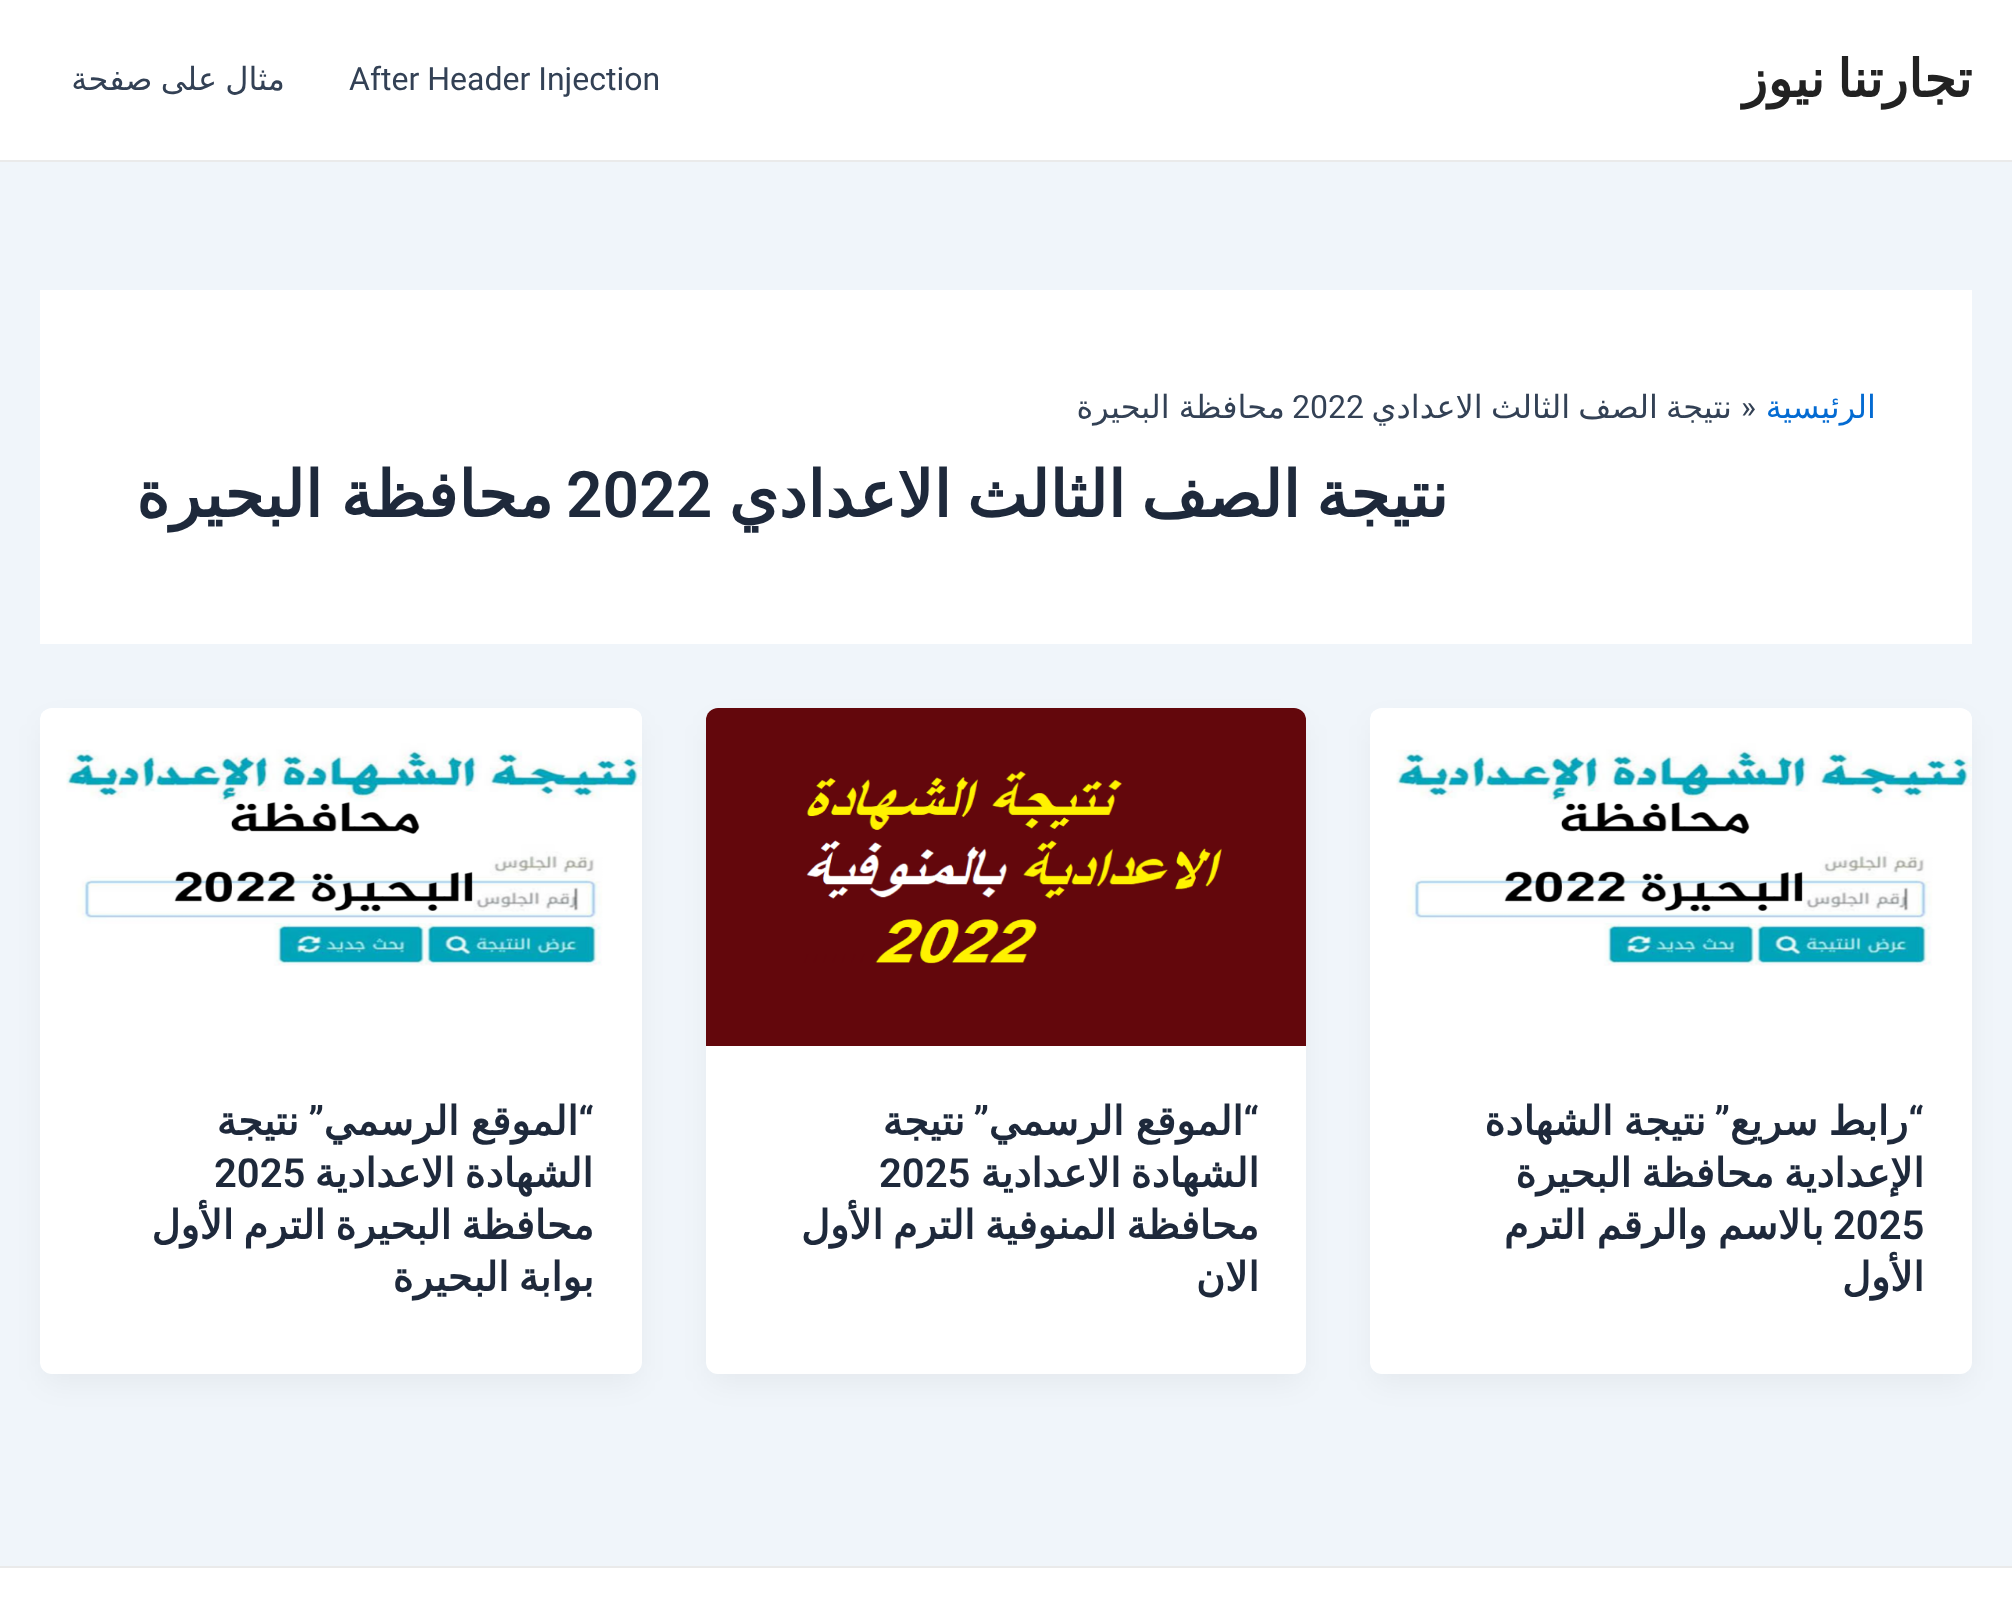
<svg xmlns="http://www.w3.org/2000/svg" width="2012" height="1621" viewBox="0 0 2012 1621">
  <defs>
    <filter id="blur1" x="-50%" y="-200%" width="200%" height="500%"><feGaussianBlur stdDeviation="15"/></filter>
  </defs>
  <rect width="100%" height="100%" fill="#f0f5fa"/>
  <rect x="0" y="0" width="2012" height="160" fill="#ffffff"/>
  <rect x="0" y="160" width="2012" height="2" fill="#eaeaea"/>
  <text x="1972" y="97" word-spacing="-4" font-family="DejaVu Sans" font-size="52" font-weight="bold" direction="rtl" fill="#222222">تجارتنا نيوز</text>
  <text x="349" y="90" font-family="Roboto" font-size="32" fill="#334155">After Header Injection</text>
  <text x="285" y="90" word-spacing="-2" font-family="DejaVu Sans" font-size="32" direction="rtl" fill="#334155">مثال على صفحة</text>
  <rect x="40" y="290" width="1932" height="354" fill="#ffffff"/>
  <text x="1876" y="418" font-family="DejaVu Sans" font-size="32" direction="rtl" fill="#046bd2">الرئيسية</text>
  <text x="1741" y="418" font-family="Roboto" font-size="32" fill="#334155">»</text>
  <text x="1732" y="418" word-spacing="-2" font-family="DejaVu Sans" font-size="32" direction="rtl" fill="#334155">نتيجة الصف الثالث الاعدادي</text>
  <text x="1292" y="418" font-family="Roboto" font-size="32" fill="#334155">2022</text>
  <text x="1285" y="418" word-spacing="-1" font-family="DejaVu Sans" font-size="32" direction="rtl" fill="#334155">محافظة البحيرة</text>
  <text x="1448" y="517" word-spacing="-4.5" font-family="DejaVu Sans" font-size="64" font-weight="bold" direction="rtl" fill="#1e293b">نتيجة الصف الثالث الاعدادي</text>
  <text x="566" y="517" font-family="Roboto" font-size="64" font-weight="600" fill="#1e293b">2022</text>
  <text x="553" y="517" word-spacing="-2" font-family="DejaVu Sans" font-size="64" font-weight="bold" direction="rtl" fill="#1e293b">محافظة البحيرة</text>
  <rect x="1374" y="724" width="594" height="658" rx="8" fill="#101828" fill-opacity="0.05" filter="url(#blur1)"/>
  <rect x="1370" y="708" width="602" height="666" rx="12" fill="#ffffff"/>
  <image x="1371" y="711" width="601" height="255" href="img1.png"/>
  <text x="1924" y="1135" font-family="Roboto" font-size="40" font-weight="600" direction="rtl" fill="#1e293b">“</text>
  <text x="1908" y="1135" word-spacing="-2" font-family="DejaVu Sans" font-size="40" font-weight="bold" direction="rtl" fill="#1e293b">رابط سريع</text>
  <text x="1730" y="1135" font-family="Roboto" font-size="40" font-weight="600" direction="rtl" fill="#1e293b">”</text>
  <text x="1706" y="1135" word-spacing="-2" font-family="DejaVu Sans" font-size="40" font-weight="bold" direction="rtl" fill="#1e293b">نتيجة الشهادة</text>
  <text x="1924" y="1187" word-spacing="-3" font-family="DejaVu Sans" font-size="40" font-weight="bold" direction="rtl" fill="#1e293b">الإعدادية محافظة البحيرة</text>
  <text x="1833" y="1239" font-family="Roboto" font-size="40" font-weight="600" fill="#1e293b">2025</text>
  <text x="1824" y="1239" word-spacing="-2" font-family="DejaVu Sans" font-size="40" font-weight="bold" direction="rtl" fill="#1e293b">بالاسم والرقم الترم</text>
  <text x="1924" y="1291" font-family="DejaVu Sans" font-size="40" font-weight="bold" direction="rtl" fill="#1e293b">الأول</text>
  <rect x="710" y="724" width="592" height="658" rx="8" fill="#101828" fill-opacity="0.05" filter="url(#blur1)"/>
  <rect x="706" y="708" width="600" height="666" rx="12" fill="#ffffff"/>
  <image x="706" y="708" width="600" height="338" href="img2.png"/>
  <text x="1259" y="1135" font-family="Roboto" font-size="40" font-weight="600" direction="rtl" fill="#1e293b">“</text>
  <text x="1243" y="1135" word-spacing="-1" font-family="DejaVu Sans" font-size="40" font-weight="bold" direction="rtl" fill="#1e293b">الموقع الرسمي</text>
  <text x="989" y="1135" font-family="Roboto" font-size="40" font-weight="600" direction="rtl" fill="#1e293b">”</text>
  <text x="965" y="1135" font-family="DejaVu Sans" font-size="40" font-weight="bold" direction="rtl" fill="#1e293b">نتيجة</text>
  <text x="1259" y="1187" word-spacing="-3" font-family="DejaVu Sans" font-size="40" font-weight="bold" direction="rtl" fill="#1e293b">الشهادة الاعدادية</text>
  <text x="879" y="1187" font-family="Roboto" font-size="40" font-weight="600" fill="#1e293b">2025</text>
  <text x="1259" y="1239" word-spacing="-3" font-family="DejaVu Sans" font-size="40" font-weight="bold" direction="rtl" fill="#1e293b">محافظة المنوفية الترم الأول</text>
  <text x="1259" y="1291" font-family="DejaVu Sans" font-size="40" font-weight="bold" direction="rtl" fill="#1e293b">الان</text>
  <rect x="44" y="724" width="594" height="658" rx="8" fill="#101828" fill-opacity="0.05" filter="url(#blur1)"/>
  <rect x="40" y="708" width="602" height="666" rx="12" fill="#ffffff"/>
  <image x="41" y="711" width="601" height="255" href="img1.png"/>
  <text x="594" y="1135" font-family="Roboto" font-size="40" font-weight="600" direction="rtl" fill="#1e293b">“</text>
  <text x="578" y="1135" word-spacing="-1" font-family="DejaVu Sans" font-size="40" font-weight="bold" direction="rtl" fill="#1e293b">الموقع الرسمي</text>
  <text x="324" y="1135" font-family="Roboto" font-size="40" font-weight="600" direction="rtl" fill="#1e293b">”</text>
  <text x="299" y="1135" font-family="DejaVu Sans" font-size="40" font-weight="bold" direction="rtl" fill="#1e293b">نتيجة</text>
  <text x="593" y="1187" word-spacing="-3" font-family="DejaVu Sans" font-size="40" font-weight="bold" direction="rtl" fill="#1e293b">الشهادة الاعدادية</text>
  <text x="214" y="1187" font-family="Roboto" font-size="40" font-weight="600" fill="#1e293b">2025</text>
  <text x="594" y="1239" word-spacing="-3" font-family="DejaVu Sans" font-size="40" font-weight="bold" direction="rtl" fill="#1e293b">محافظة البحيرة الترم الأول</text>
  <text x="594" y="1291" word-spacing="-3" font-family="DejaVu Sans" font-size="40" font-weight="bold" direction="rtl" fill="#1e293b">بوابة البحيرة</text>
  <rect x="0" y="1568" width="2012" height="53" fill="#ffffff"/>
  <rect x="0" y="1566" width="2012" height="2" fill="#eaeaea"/>
</svg>
